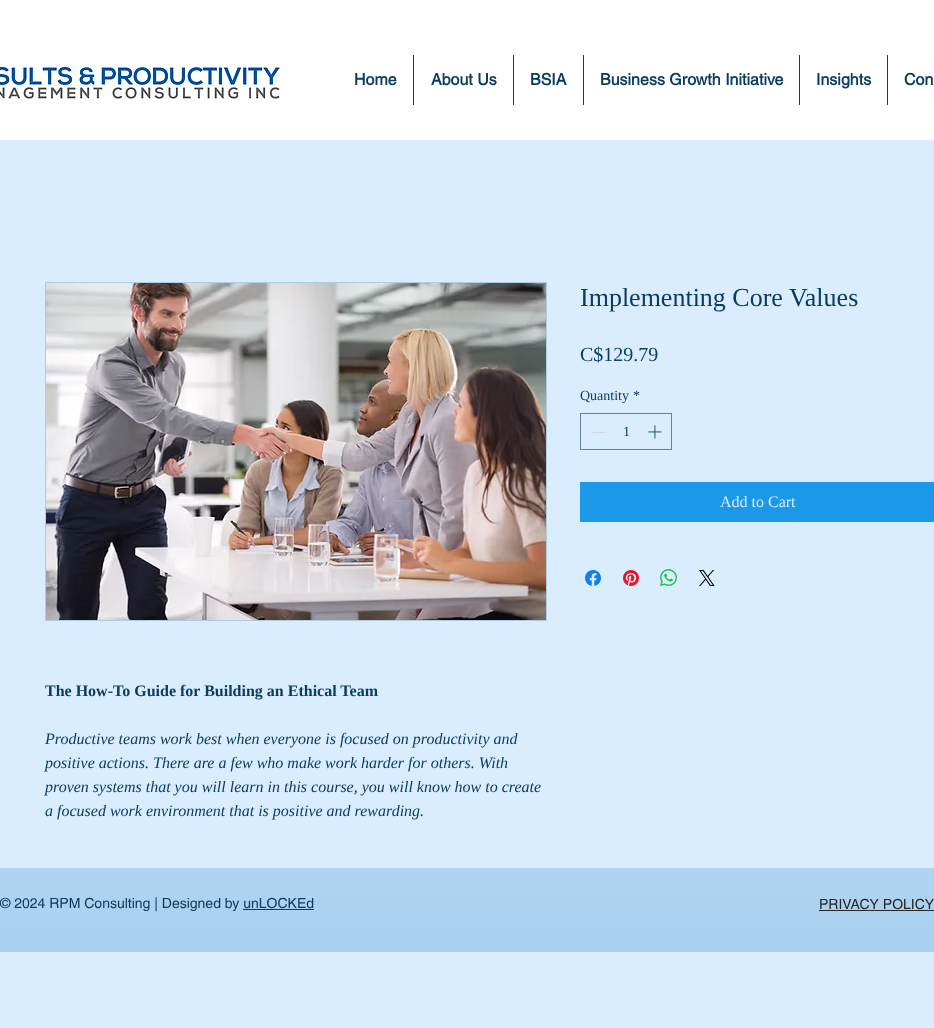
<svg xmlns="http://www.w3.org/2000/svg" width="934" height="1028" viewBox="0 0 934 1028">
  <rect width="100%" height="100%" fill="#daedff"/>
  <rect x="0" y="0" width="934" height="140" fill="#ffffff"/>
  <image x="0" y="66" width="280" height="33" href="img1.png"/>
  <text x="354" y="85" font-family="helvetica" font-size="16" font-weight="bold" fill="#0c3c60">Home</text>
  <rect x="413" y="55" width="1" height="50" fill="#0c3c60"/>
  <text x="431" y="85" font-family="helvetica" font-size="16" font-weight="bold" fill="#0c3c60">About Us</text>
  <rect x="513" y="55" width="1" height="50" fill="#0c3c60"/>
  <text x="530" y="85" font-family="helvetica" font-size="16" font-weight="bold" fill="#0c3c60">BSIA</text>
  <rect x="583" y="55" width="1" height="50" fill="#0c3c60"/>
  <text x="600" y="85" font-family="helvetica" font-size="16" font-weight="bold" fill="#0c3c60">Business Growth Initiative</text>
  <rect x="799" y="55" width="1" height="50" fill="#0c3c60"/>
  <text x="816" y="85" font-family="helvetica" font-size="16" font-weight="bold" fill="#0c3c60">Insights</text>
  <rect x="887" y="55" width="1" height="50" fill="#0c3c60"/>
  <text x="904" y="85" font-family="helvetica" font-size="16" font-weight="bold" fill="#0c3c60">Con</text>
  <text x="580" y="306" font-family="Liberation Serif" font-size="26" fill="#0c3c60">Implementing Core Values</text>
  <text x="580" y="361" font-family="Liberation Serif" font-size="20" fill="#0c3c60">C$129.79</text>
  <text x="580" y="400" font-family="Liberation Serif" font-size="14" fill="#0c3c60">Quantity</text>
  <text x="633" y="400" font-family="Liberation Serif" font-size="14" fill="#0c3c60">*</text>
  <rect x="580.5" y="413.5" width="91" height="36" fill="none" stroke="#5e83a0"/>
  <rect x="592" y="432" width="13" height="1" fill="#d1dae3"/>
  <text x="623" y="436" font-family="Liberation Serif" font-size="14" fill="#0c3c60">1</text>
  <image x="648" y="425" width="14" height="14" href="img2.png"/>
  <rect x="580" y="482" width="354" height="40" fill="#1b99e8"/>
  <text x="720" y="507" font-family="Liberation Serif" font-size="16" fill="#daedff">Add to Cart</text>
  <image x="585" y="570" width="16" height="16" href="img3.png"/>
  <image x="623" y="570" width="16" height="16" href="img4.png"/>
  <image x="660" y="569" width="17" height="17" href="img5.png"/>
  <image x="699" y="570" width="16" height="16" href="img6.png"/>
  <rect x="45.5" y="282.5" width="501" height="338" fill="none" stroke="#afcbe0"/>
  <image x="46" y="283" width="500" height="337" href="img7.png"/>
  <text x="45" y="696" font-family="Liberation Serif" font-size="16" font-weight="bold" fill="#0c3c60">The How-To Guide for Building an Ethical Team</text>
  <text x="45" y="744" font-family="Liberation Serif" font-size="16" font-style="italic" fill="#0c3c60">Productive teams work best when everyone is focused on productivity and</text>
  <text x="45" y="768" font-family="Liberation Serif" font-size="16" font-style="italic" fill="#0c3c60">positive actions. There are a few who make work harder for others. With</text>
  <text x="45" y="792" font-family="Liberation Serif" font-size="16" font-style="italic" fill="#0c3c60">proven systems that you will learn in this course, you will know how to create</text>
  <text x="45" y="816" font-family="Liberation Serif" font-size="16" font-style="italic" fill="#0c3c60">a focused work environment that is positive and rewarding.</text>
  <rect x="0" y="868" width="934" height="84" fill="#95c6ec"/>
  <image x="0" y="868" width="934" height="84" href="img8.png"/>
  <text x="0" y="908" font-family="helvetica" font-size="14" fill="#0c3c60">© 2024 RPM Consulting | Designed by unLOCKEd</text>
  <rect x="243" y="909" width="71" height="1" fill="#0c3c60"/>
  <text x="819" y="909" font-family="helvetica" font-size="14" fill="#272626">PRIVACY POLICY</text>
  <rect x="819" y="910" width="115" height="1" fill="#272626"/>
</svg>
